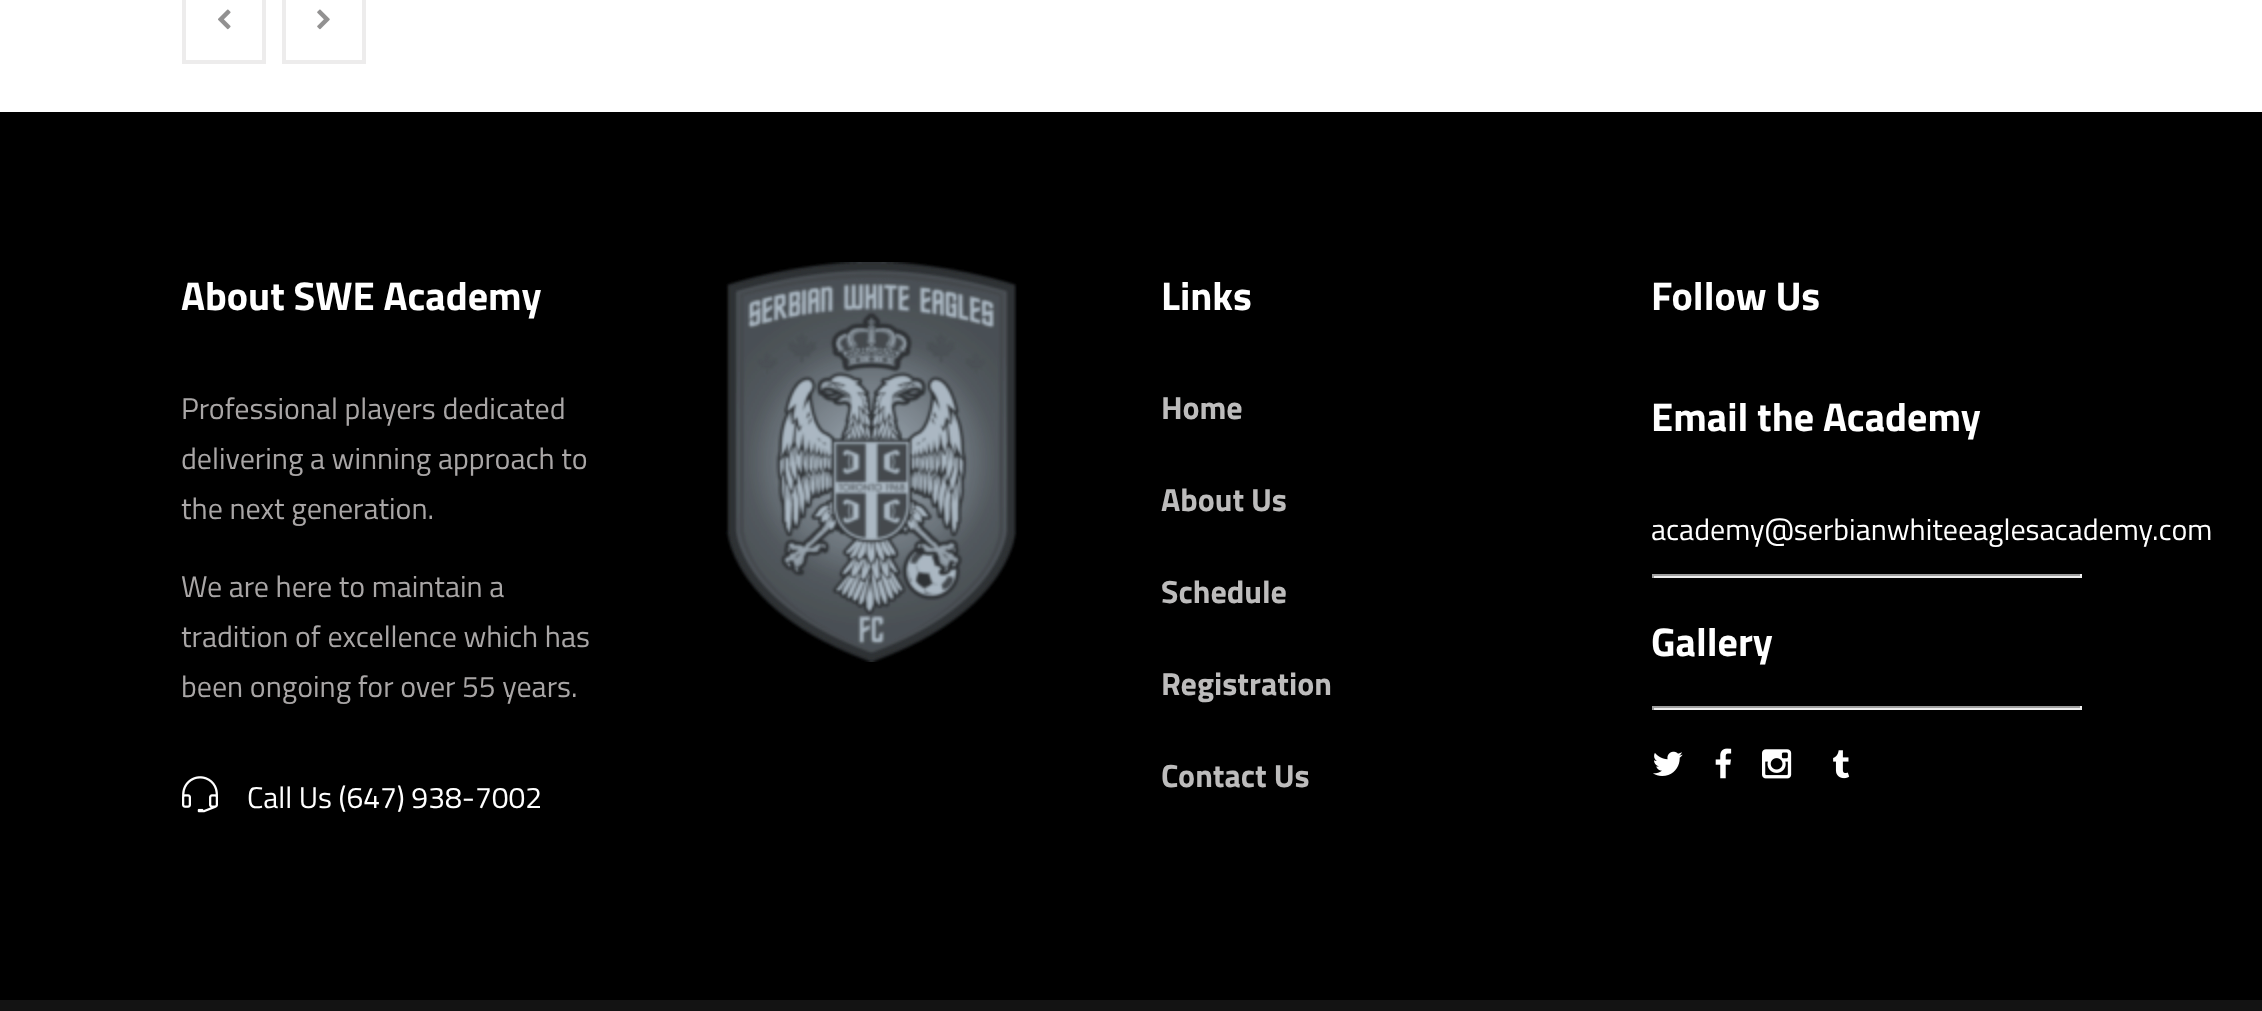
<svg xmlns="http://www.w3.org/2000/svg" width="2262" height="1011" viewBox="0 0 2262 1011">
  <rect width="100%" height="100%" fill="#ffffff"/>
  <rect x="184" y="-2" width="80" height="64" fill="none" stroke="#edecec" stroke-width="4"/>
  <image x="218" y="9" width="13" height="21" href="img1.png"/>
  <rect x="284" y="-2" width="80" height="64" fill="none" stroke="#edecec" stroke-width="4"/>
  <image x="317" y="9" width="13" height="21" href="img2.png"/>
  <rect x="0" y="112" width="2262" height="888" fill="#000000"/>
  <text x="181" y="310" font-family="Titillium Web" font-size="40" font-weight="bold" fill="#ffffff">About SWE Academy</text>
  <text x="181" y="419" font-family="Titillium Web" font-size="30" fill="#a9a6a6">Professional players dedicated</text>
  <text x="181" y="469" font-family="Titillium Web" font-size="30" fill="#a9a6a6">delivering a winning approach to</text>
  <text x="181" y="519" font-family="Titillium Web" font-size="30" fill="#a9a6a6">the next generation.</text>
  <text x="181" y="597" font-family="Titillium Web" font-size="30" fill="#a9a6a6">We are here to maintain a</text>
  <text x="181" y="647" font-family="Titillium Web" font-size="30" fill="#a9a6a6">tradition of excellence which has</text>
  <text x="181" y="697" font-family="Titillium Web" font-size="30" fill="#a9a6a6">been ongoing for over 55 years.</text>
  <image x="182" y="776" width="36" height="37" href="img3.png"/>
  <text x="247" y="808" font-family="Titillium Web" font-size="30" fill="#ffffff">Call Us (647) 938-7002</text>
  <image x="725" y="262" width="292" height="400" href="img4.png"/>
  <text x="1161" y="310" font-family="Titillium Web" font-size="40" font-weight="bold" fill="#ffffff">Links</text>
  <text x="1161" y="419" font-family="Titillium Web" font-size="32" font-weight="bold" fill="#bdbcbc">Home</text>
  <text x="1161" y="511" font-family="Titillium Web" font-size="32" font-weight="bold" fill="#bdbcbc">About Us</text>
  <text x="1161" y="603" font-family="Titillium Web" font-size="32" font-weight="bold" fill="#bdbcbc">Schedule</text>
  <text x="1161" y="695" font-family="Titillium Web" font-size="32" font-weight="bold" fill="#bdbcbc">Registration</text>
  <text x="1161" y="787" font-family="Titillium Web" font-size="32" font-weight="bold" fill="#bdbcbc">Contact Us</text>
  <text x="1651" y="310" font-family="Titillium Web" font-size="40" font-weight="bold" fill="#ffffff">Follow Us</text>
  <text x="1651" y="431" font-family="Titillium Web" font-size="40" font-weight="bold" fill="#ffffff">Email the Academy</text>
  <text x="1651" y="540" font-family="Titillium Web" font-size="30" fill="#ffffff">academy@serbianwhiteeaglesacademy.com</text>
  <rect x="1652" y="574" width="430" height="2" fill="#9f9f9f"/>
  <rect x="2080" y="574" width="2" height="4" fill="#eeeeee"/>
  <rect x="1652" y="576" width="430" height="2" fill="#eeeeee"/>
  <rect x="1652" y="574" width="2" height="4" fill="#9f9f9f"/>
  <text x="1651" y="656" font-family="Titillium Web" font-size="40" font-weight="bold" fill="#ffffff">Gallery</text>
  <rect x="1652" y="706" width="430" height="2" fill="#9f9f9f"/>
  <rect x="2080" y="706" width="2" height="4" fill="#eeeeee"/>
  <rect x="1652" y="708" width="430" height="2" fill="#eeeeee"/>
  <rect x="1652" y="706" width="2" height="4" fill="#9f9f9f"/>
  <image x="1653" y="751" width="30" height="25" href="img5.png"/>
  <image x="1715" y="748" width="17" height="31" href="img6.png"/>
  <image x="1762" y="749" width="30" height="30" href="img7.png"/>
  <image x="1833" y="750" width="17" height="29" href="img8.png"/>
  <rect x="0" y="1000" width="2262" height="11" fill="#131313"/>
</svg>
